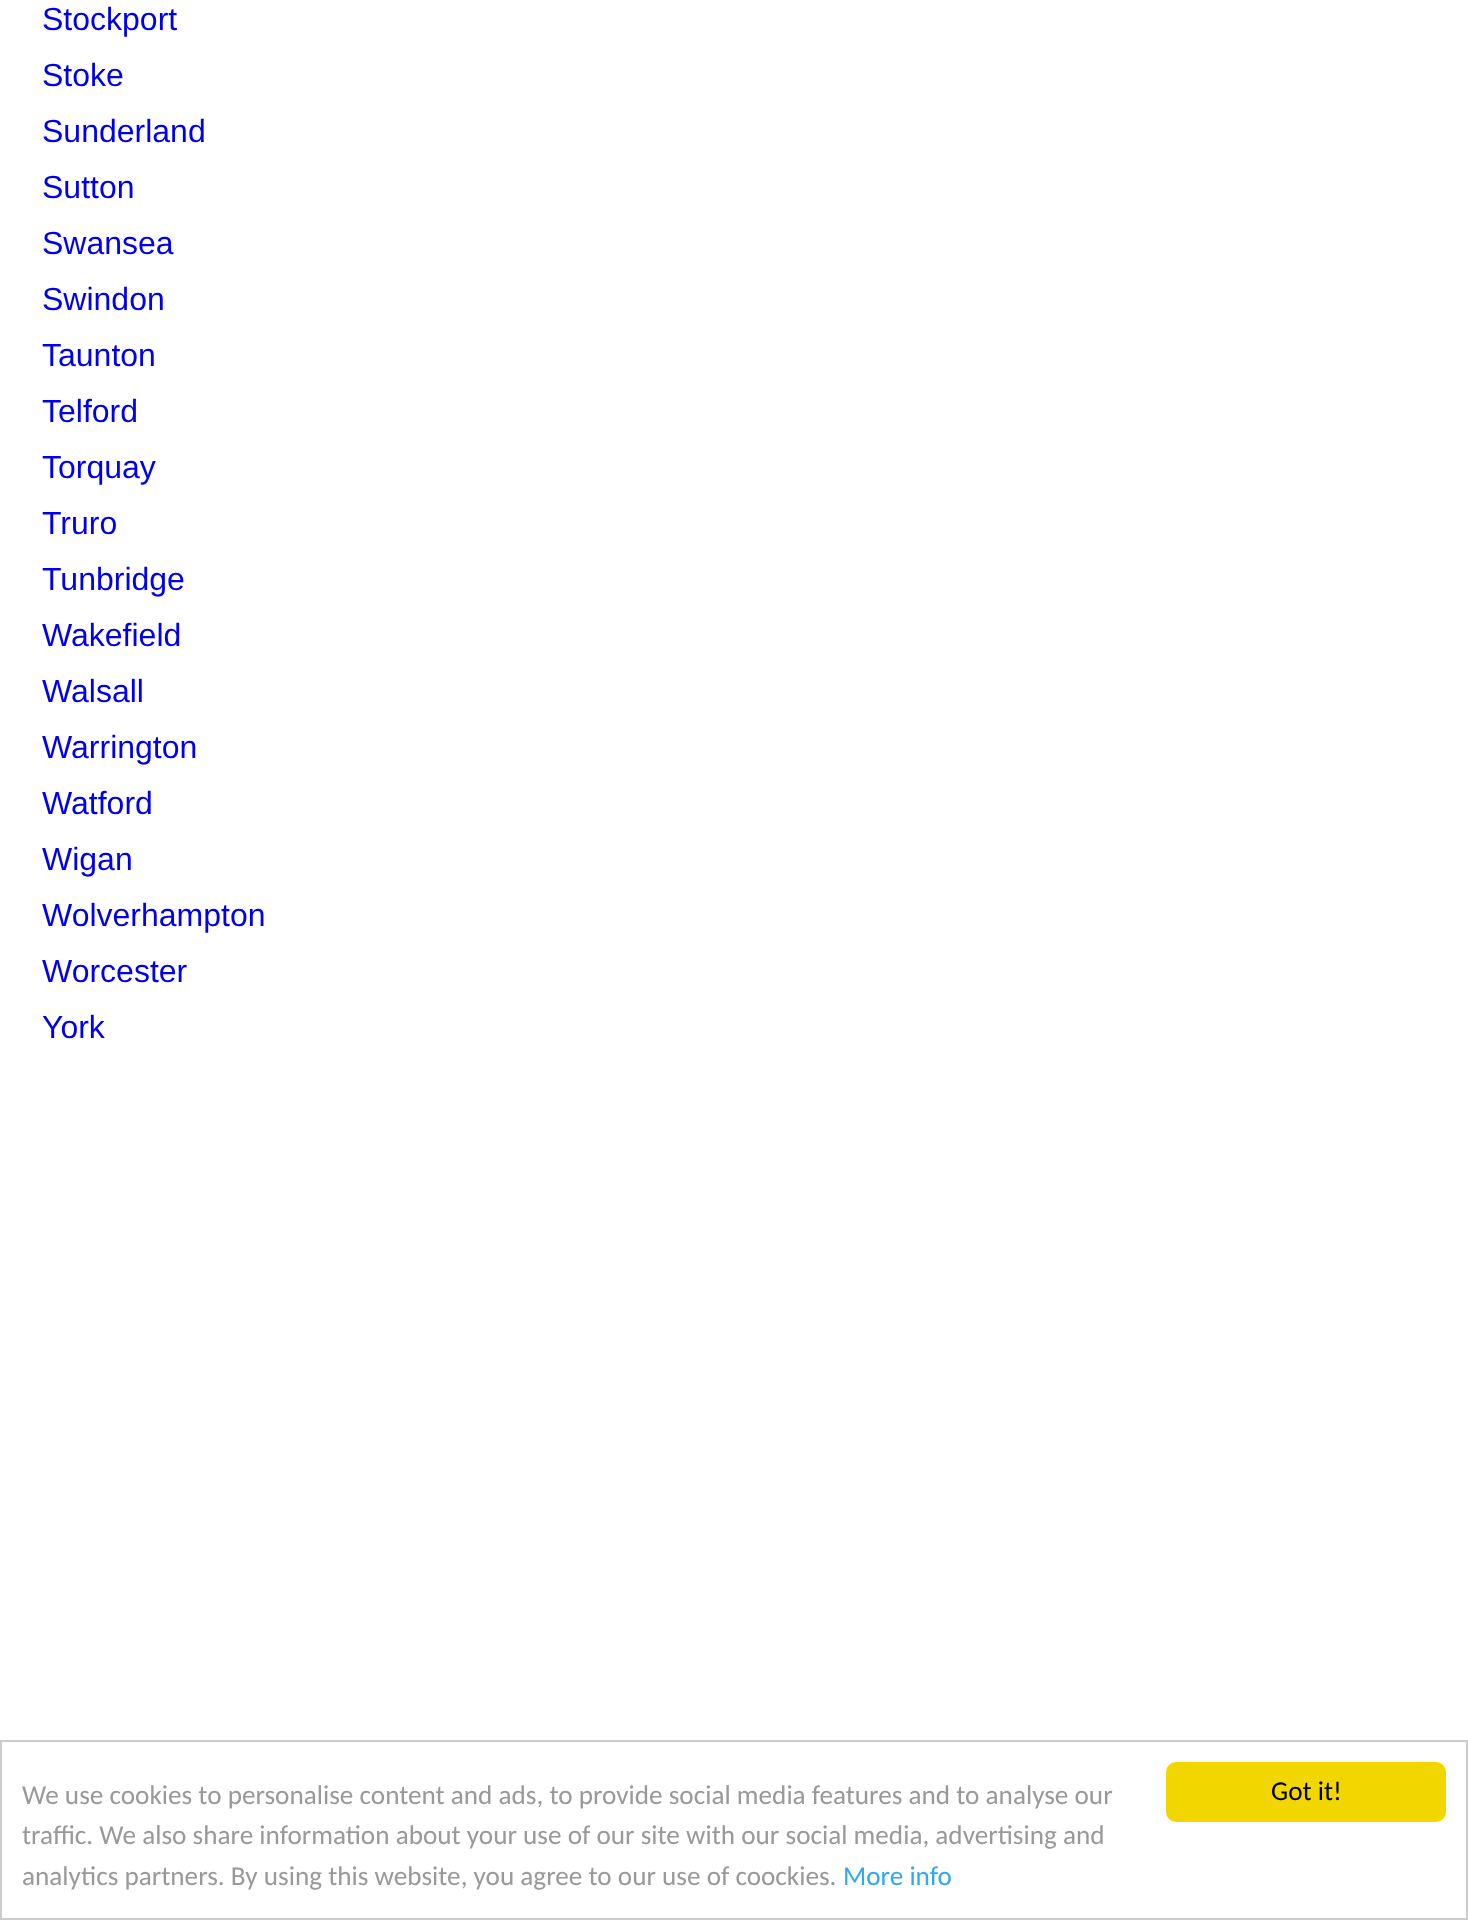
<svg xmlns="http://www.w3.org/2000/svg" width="1468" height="1920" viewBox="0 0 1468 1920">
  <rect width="100%" height="100%" fill="#ffffff"/>
  <text x="42" y="30" font-family="Liberation Sans" font-size="32" fill="#0000ee">Stockport</text>
  <text x="42" y="86" font-family="Liberation Sans" font-size="32" fill="#0000ee">Stoke</text>
  <text x="42" y="142" font-family="Liberation Sans" font-size="32" fill="#0000ee">Sunderland</text>
  <text x="42" y="198" font-family="Liberation Sans" font-size="32" fill="#0000ee">Sutton</text>
  <text x="42" y="254" font-family="Liberation Sans" font-size="32" fill="#0000ee">Swansea</text>
  <text x="42" y="310" font-family="Liberation Sans" font-size="32" fill="#0000ee">Swindon</text>
  <text x="42" y="366" font-family="Liberation Sans" font-size="32" fill="#0000ee">Taunton</text>
  <text x="42" y="422" font-family="Liberation Sans" font-size="32" fill="#0000ee">Telford</text>
  <text x="42" y="478" font-family="Liberation Sans" font-size="32" fill="#0000ee">Torquay</text>
  <text x="42" y="534" font-family="Liberation Sans" font-size="32" fill="#0000ee">Truro</text>
  <text x="42" y="590" font-family="Liberation Sans" font-size="32" fill="#0000ee">Tunbridge</text>
  <text x="42" y="646" font-family="Liberation Sans" font-size="32" fill="#0000ee">Wakefield</text>
  <text x="42" y="702" font-family="Liberation Sans" font-size="32" fill="#0000ee">Walsall</text>
  <text x="42" y="758" font-family="Liberation Sans" font-size="32" fill="#0000ee">Warrington</text>
  <text x="42" y="814" font-family="Liberation Sans" font-size="32" fill="#0000ee">Watford</text>
  <text x="42" y="870" font-family="Liberation Sans" font-size="32" fill="#0000ee">Wigan</text>
  <text x="42" y="926" font-family="Liberation Sans" font-size="32" fill="#0000ee">Wolverhampton</text>
  <text x="42" y="982" font-family="Liberation Sans" font-size="32" fill="#0000ee">Worcester</text>
  <text x="42" y="1038" font-family="Liberation Sans" font-size="32" fill="#0000ee">York</text>
  <rect x="1" y="1741" width="1466" height="178" fill="none" stroke="#cccccc" stroke-width="2"/>
  <text x="22" y="1804" font-family="Carlito" font-size="27.2" fill="#999999">We use cookies to personalise content and ads, to provide social media features and to analyse our</text>
  <text x="22" y="1844" font-family="Carlito" font-size="27.2" fill="#999999">traffic. We also share information about your use of our site with our social media, advertising and</text>
  <text x="22" y="1885" font-family="Carlito" font-size="27.2" fill="#999999">analytics partners. By using this website, you agree to our use of coockies.</text>
  <text x="843" y="1885" font-family="Carlito" font-size="27.2" fill="#31a8f0">More info</text>
  <rect x="1166" y="1762" width="280" height="60" rx="10" fill="#f1d600"/>
  <text x="1271" y="1800" font-family="Carlito" font-size="27.2" fill="#000000">Got it!</text>
</svg>
